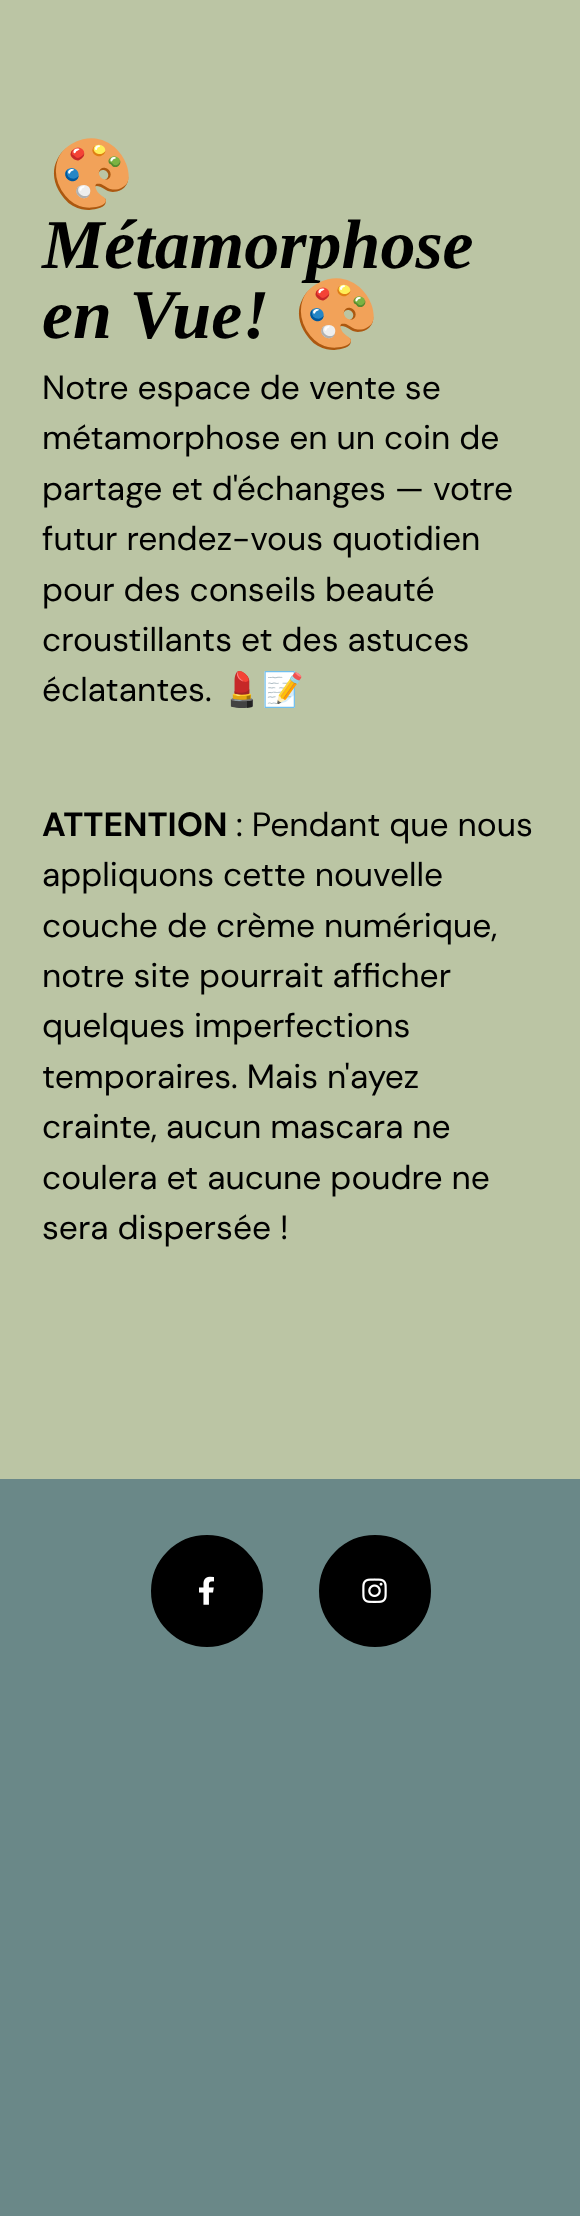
<svg xmlns="http://www.w3.org/2000/svg" width="580" height="2216" viewBox="0 0 580 2216">
  <rect width="100%" height="100%" fill="#6a8888"/>
  <rect x="0" y="0" width="580" height="1479" fill="#bbc5a4"/>
  <text x="42" y="198" font-family="Noto Color Emoji" font-size="70" font-weight="bold" font-style="italic" fill="#000000">🎨</text>
  <text x="42" y="268" font-family="Tinos" font-size="70" font-weight="bold" font-style="italic" fill="#000000">Métamorphose</text>
  <text x="42" y="338" font-family="Tinos" font-size="70" font-weight="bold" font-style="italic" fill="#000000">en Vue!</text>
  <text x="287" y="338" font-family="Noto Color Emoji" font-size="70" font-weight="bold" font-style="italic" fill="#000000">🎨</text>
  <text x="42" y="399" font-family="DM Sans" font-size="33.6" fill="#000000">Notre espace de vente se</text>
  <text x="42" y="449" font-family="DM Sans" font-size="33.6" fill="#000000">métamorphose en un coin de</text>
  <text x="42" y="500" font-family="DM Sans" font-size="33.6" fill="#000000">partage et d'échanges — votre</text>
  <text x="42" y="550" font-family="DM Sans" font-size="33.6" fill="#000000">futur rendez-vous quotidien</text>
  <text x="42" y="601" font-family="DM Sans" font-size="33.6" fill="#000000">pour des conseils beauté</text>
  <text x="42" y="651" font-family="DM Sans" font-size="33.6" fill="#000000">croustillants et des astuces</text>
  <text x="42" y="701" font-family="DM Sans" font-size="33.6" fill="#000000">éclatantes.</text>
  <text x="221" y="701" font-family="Noto Color Emoji" font-size="33.6" fill="#000000">💄📝</text>
  <text x="42" y="836" font-family="DM Sans" font-size="33.6" font-weight="bold" fill="#000000">ATTENTION</text>
  <text x="236" y="836" font-family="DM Sans" font-size="33.6" fill="#000000">: Pendant que nous</text>
  <text x="42" y="886" font-family="DM Sans" font-size="33.6" fill="#000000">appliquons cette nouvelle</text>
  <text x="42" y="937" font-family="DM Sans" font-size="33.6" fill="#000000">couche de crème numérique,</text>
  <text x="42" y="987" font-family="DM Sans" font-size="33.6" fill="#000000">notre site pourrait afficher</text>
  <text x="42" y="1037" font-family="DM Sans" font-size="33.6" fill="#000000">quelques imperfections</text>
  <text x="42" y="1088" font-family="DM Sans" font-size="33.6" fill="#000000">temporaires. Mais n'ayez</text>
  <text x="42" y="1138" font-family="DM Sans" font-size="33.6" fill="#000000">crainte, aucun mascara ne</text>
  <text x="42" y="1189" font-family="DM Sans" font-size="33.6" fill="#000000">coulera et aucune poudre ne</text>
  <text x="42" y="1239" font-family="DM Sans" font-size="33.6" fill="#000000">sera dispersée !</text>
  <circle cx="207" cy="1591" r="55" fill="#000000" stroke="#000000" stroke-width="2"/>
  <image x="199" y="1576" width="15" height="29" href="img1.png"/>
  <circle cx="375" cy="1591" r="55" fill="#000000" stroke="#000000" stroke-width="2"/>
  <image x="362" y="1578" width="25" height="25" href="img2.png"/>
</svg>
